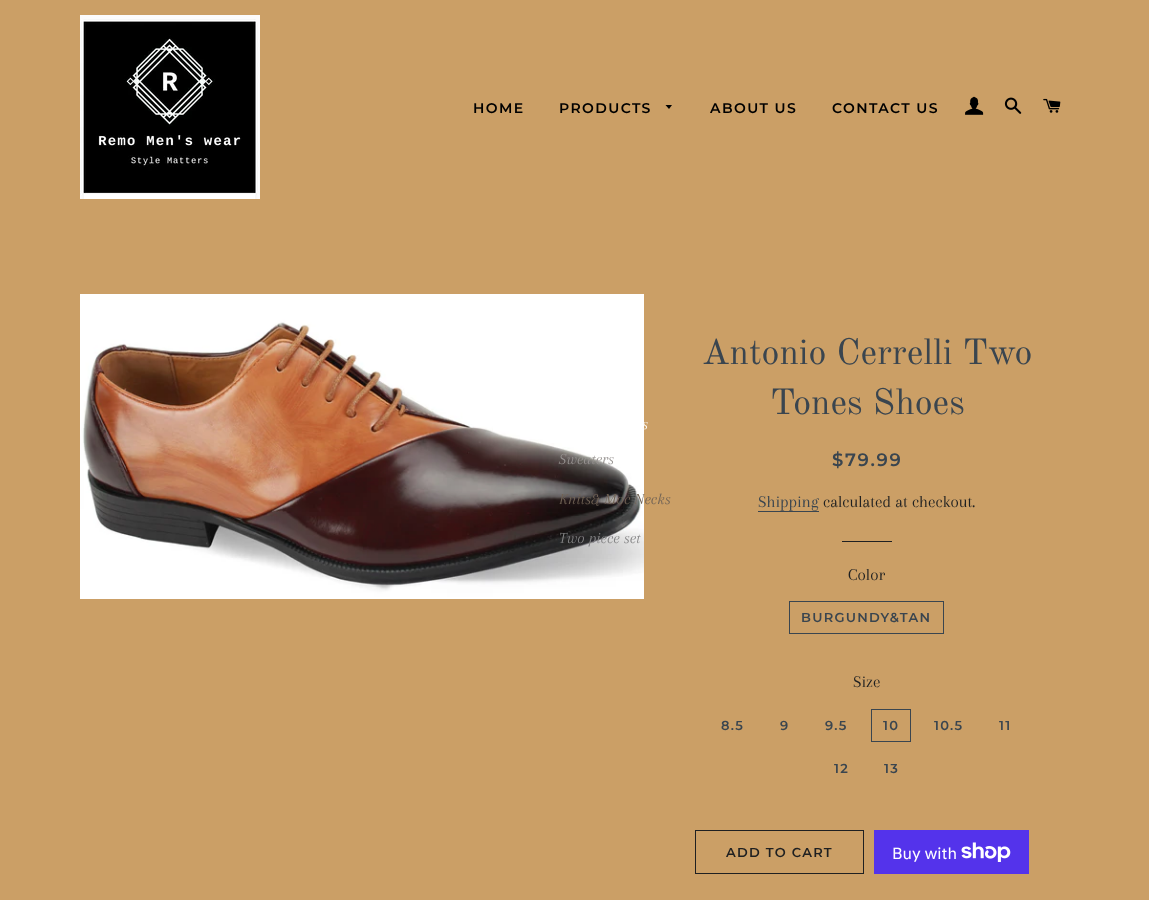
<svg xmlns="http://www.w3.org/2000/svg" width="1149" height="900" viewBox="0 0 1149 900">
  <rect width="100%" height="100%" fill="#cb9f66"/>
  <image x="80" y="15" width="180" height="184" href="img1.png"/>
  <text x="473" y="113" font-family="Montserrat" font-size="14" font-weight="600" letter-spacing="1.4" fill="#000000">HOME</text>
  <text x="559" y="113" font-family="Montserrat" font-size="14" font-weight="600" letter-spacing="1.4" fill="#000000">PRODUCTS</text>
  <path d="M665.5 105L669 109L672 105Z" fill="#000000"/>
  <image x="80" y="294" width="564" height="305" href="img5.png"/>
  <text x="642" y="429" font-family="Arapey" font-size="16" font-style="italic" fill="#fcfaf7">s</text>
  <text x="559" y="464" font-family="Arapey" font-size="16" font-style="italic" fill="#979391">Sweaters</text>
  <text x="559" y="504" font-family="Arapey" font-size="16" font-style="italic" fill="#716355">Knits&amp; Moc Necks</text>
  <text x="559" y="543" font-family="Arapey" font-size="16" font-style="italic" fill="#848485">Two piece set</text>
  <text x="710" y="113" font-family="Montserrat" font-size="14" font-weight="600" letter-spacing="1.4" fill="#000000">ABOUT US</text>
  <text x="832" y="113" font-family="Montserrat" font-size="14" font-weight="600" letter-spacing="1.4" fill="#000000">CONTACT US</text>
  <image x="965" y="96" width="19" height="19" href="img2.png"/>
  <image x="1004" y="97" width="18" height="17" href="img3.png"/>
  <image x="1043" y="98" width="18" height="15" href="img4.png"/>
  <text x="702" y="364" font-family="Old Standard TT" font-size="36" fill="#3a454f">Antonio Cerrelli Two</text>
  <text x="770" y="414" font-family="Old Standard TT" font-size="36" fill="#3a454f">Tones Shoes</text>
  <text x="832" y="466" font-family="Montserrat" font-size="18" font-weight="600" letter-spacing="1.75" fill="#3a454f">$79.99</text>
  <text x="758" y="507" font-family="Arapey" font-size="17" fill="#3a454f">Shipping</text>
  <rect x="758" y="511" width="61" height="1" fill="#3a454f"/>
  <text x="823" y="507" font-family="Arapey" font-size="17" fill="#1f2021">calculated at checkout.</text>
  <rect x="842" y="541" width="50" height="1" fill="#1f2021"/>
  <text x="848" y="580" font-family="Arapey" font-size="17" fill="#1f2021">Color</text>
  <rect x="789.5" y="601.5" width="154" height="32" fill="none" stroke="#3a454f"/>
  <text x="801" y="622" font-family="Montserrat" font-size="13" font-weight="600" letter-spacing="1.25" fill="#3a454f">BURGUNDY&amp;TAN</text>
  <text x="853" y="687" font-family="Arapey" font-size="17" fill="#1f2021">Size</text>
  <text x="721" y="730" font-family="Montserrat" font-size="13" font-weight="600" letter-spacing="1.25" fill="#3a454f">8.5</text>
  <text x="780" y="730" font-family="Montserrat" font-size="13" font-weight="600" letter-spacing="1.25" fill="#3a454f">9</text>
  <text x="825" y="730" font-family="Montserrat" font-size="13" font-weight="600" letter-spacing="1.25" fill="#3a454f">9.5</text>
  <rect x="871.5" y="709.5" width="39" height="32" fill="none" stroke="#3a454f"/>
  <text x="883" y="730" font-family="Montserrat" font-size="13" font-weight="600" letter-spacing="1.25" fill="#3a454f">10</text>
  <text x="934" y="730" font-family="Montserrat" font-size="13" font-weight="600" letter-spacing="1.25" fill="#3a454f">10.5</text>
  <text x="999" y="730" font-family="Montserrat" font-size="13" font-weight="600" letter-spacing="1.25" fill="#3a454f">11</text>
  <text x="834" y="773" font-family="Montserrat" font-size="13" font-weight="600" letter-spacing="1.25" fill="#3a454f">12</text>
  <text x="884" y="773" font-family="Montserrat" font-size="13" font-weight="600" letter-spacing="1.25" fill="#3a454f">13</text>
  <rect x="695.5" y="830.5" width="168" height="43" fill="none" stroke="#1f2021"/>
  <text x="726" y="857" font-family="Montserrat" font-size="13" font-weight="600" letter-spacing="1.25" fill="#1f2021">ADD TO CART</text>
  <rect x="874" y="830" width="155" height="44" fill="#5433eb"/>
  <text x="892" y="859" font-family="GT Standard" font-size="16" fill="#ffffff">Buy with</text>
  <image x="961" y="842" width="50" height="20" href="img6.png"/>
</svg>
